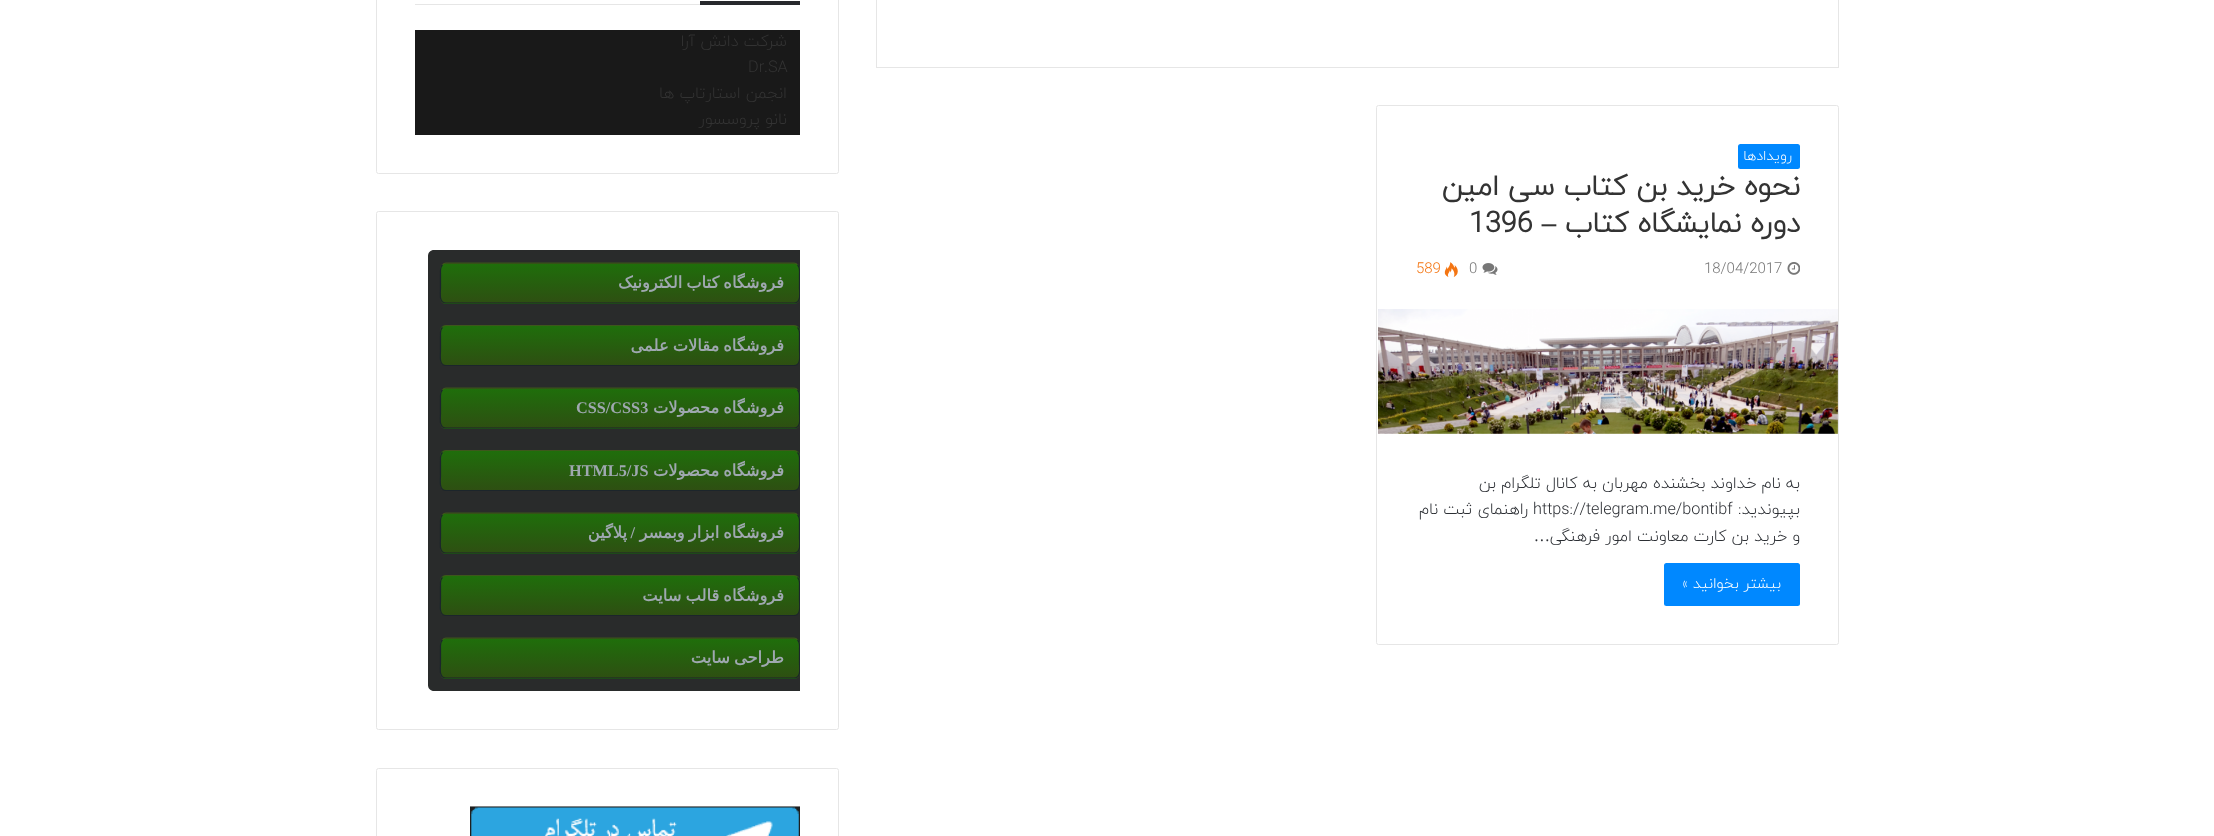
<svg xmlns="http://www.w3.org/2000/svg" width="2214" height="836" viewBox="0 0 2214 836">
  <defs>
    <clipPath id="clip1"><rect x="440" y="263" width="360" height="41" rx="6"/></clipPath>
    <linearGradient id="g1" gradientUnits="userSpaceOnUse" x1="620" y1="225" x2="620" y2="264"><stop offset="0" stop-color="#1f6e0b"/><stop offset="1" stop-color="#2e4f12"/></linearGradient>
    <linearGradient id="g2" gradientUnits="userSpaceOnUse" x1="620" y1="264" x2="620" y2="303"><stop offset="0" stop-color="#1f6e0b"/><stop offset="1" stop-color="#2e4f12"/></linearGradient>
    <linearGradient id="g3" gradientUnits="userSpaceOnUse" x1="620" y1="302" x2="620" y2="341"><stop offset="0" stop-color="#1f6e0b"/><stop offset="1" stop-color="#2e4f12"/></linearGradient>
    <clipPath id="clip2"><rect x="415" y="250" width="385" height="441"/></clipPath>
    <clipPath id="clip3"><rect x="440" y="325" width="360" height="41" rx="6"/></clipPath>
    <linearGradient id="g4" gradientUnits="userSpaceOnUse" x1="620" y1="287" x2="620" y2="326"><stop offset="0" stop-color="#1f6e0b"/><stop offset="1" stop-color="#2e4f12"/></linearGradient>
    <linearGradient id="g5" gradientUnits="userSpaceOnUse" x1="620" y1="326" x2="620" y2="365"><stop offset="0" stop-color="#1f6e0b"/><stop offset="1" stop-color="#2e4f12"/></linearGradient>
    <clipPath id="clip4"><rect x="440" y="388" width="360" height="41" rx="6"/></clipPath>
    <linearGradient id="g6" gradientUnits="userSpaceOnUse" x1="620" y1="350" x2="620" y2="389"><stop offset="0" stop-color="#1f6e0b"/><stop offset="1" stop-color="#2e4f12"/></linearGradient>
    <linearGradient id="g7" gradientUnits="userSpaceOnUse" x1="620" y1="389" x2="620" y2="428"><stop offset="0" stop-color="#1f6e0b"/><stop offset="1" stop-color="#2e4f12"/></linearGradient>
    <linearGradient id="g8" gradientUnits="userSpaceOnUse" x1="620" y1="428" x2="620" y2="466"><stop offset="0" stop-color="#1f6e0b"/><stop offset="1" stop-color="#2e4f12"/></linearGradient>
    <clipPath id="clip5"><rect x="440" y="450" width="360" height="41" rx="6"/></clipPath>
    <linearGradient id="g9" gradientUnits="userSpaceOnUse" x1="620" y1="413" x2="620" y2="451"><stop offset="0" stop-color="#1f6e0b"/><stop offset="1" stop-color="#2e4f12"/></linearGradient>
    <linearGradient id="g10" gradientUnits="userSpaceOnUse" x1="620" y1="451" x2="620" y2="490"><stop offset="0" stop-color="#1f6e0b"/><stop offset="1" stop-color="#2e4f12"/></linearGradient>
    <clipPath id="clip6"><rect x="440" y="513" width="360" height="41" rx="6"/></clipPath>
    <linearGradient id="g11" gradientUnits="userSpaceOnUse" x1="620" y1="475" x2="620" y2="514"><stop offset="0" stop-color="#1f6e0b"/><stop offset="1" stop-color="#2e4f12"/></linearGradient>
    <linearGradient id="g12" gradientUnits="userSpaceOnUse" x1="620" y1="514" x2="620" y2="553"><stop offset="0" stop-color="#1f6e0b"/><stop offset="1" stop-color="#2e4f12"/></linearGradient>
    <linearGradient id="g13" gradientUnits="userSpaceOnUse" x1="620" y1="553" x2="620" y2="591"><stop offset="0" stop-color="#1f6e0b"/><stop offset="1" stop-color="#2e4f12"/></linearGradient>
    <clipPath id="clip7"><rect x="440" y="575" width="360" height="41" rx="6"/></clipPath>
    <linearGradient id="g14" gradientUnits="userSpaceOnUse" x1="620" y1="538" x2="620" y2="576"><stop offset="0" stop-color="#1f6e0b"/><stop offset="1" stop-color="#2e4f12"/></linearGradient>
    <linearGradient id="g15" gradientUnits="userSpaceOnUse" x1="620" y1="576" x2="620" y2="615"><stop offset="0" stop-color="#1f6e0b"/><stop offset="1" stop-color="#2e4f12"/></linearGradient>
    <clipPath id="clip8"><rect x="440" y="638" width="360" height="41" rx="6"/></clipPath>
    <linearGradient id="g16" gradientUnits="userSpaceOnUse" x1="620" y1="600" x2="620" y2="639"><stop offset="0" stop-color="#1f6e0b"/><stop offset="1" stop-color="#2e4f12"/></linearGradient>
    <linearGradient id="g17" gradientUnits="userSpaceOnUse" x1="620" y1="639" x2="620" y2="678"><stop offset="0" stop-color="#1f6e0b"/><stop offset="1" stop-color="#2e4f12"/></linearGradient>
    <linearGradient id="g18" gradientUnits="userSpaceOnUse" x1="620" y1="678" x2="620" y2="716"><stop offset="0" stop-color="#1f6e0b"/><stop offset="1" stop-color="#2e4f12"/></linearGradient>
  </defs>
  <rect width="100%" height="100%" fill="#ffffff"/>
  <rect x="876.5" y="-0.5" width="962" height="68" fill="none" stroke="#e6e6e6"/>
  <rect x="1376.5" y="105.5" width="462" height="539" rx="2" fill="none" stroke="#e6e6e6"/>
  <rect x="1738" y="144" width="62" height="25" rx="2.5" fill="#0088ff"/>
  <text x="1792" y="160" font-family="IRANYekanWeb" font-size="14" font-weight="300" direction="rtl" fill="#ffffff">رویدادها</text>
  <text x="1800" y="195" font-family="IRANYekanWeb" font-size="28.75" font-weight="bold" direction="rtl" fill="#333333">نحوه خرید بن کتاب سی امین</text>
  <text x="1800" y="232" font-family="IRANYekanWeb" font-size="28.75" font-weight="bold" direction="rtl" fill="#333333">دوره نمایشگاه کتاب</text>
  <text x="1556" y="232" font-family="Liberation Serif" font-size="28.75" font-weight="bold" direction="rtl" fill="#333333">–</text>
  <text x="1469" y="232" font-family="IRANYekanWeb" font-size="28.75" font-weight="bold" fill="#333333">1396</text>
  <image x="1787" y="262" width="13" height="13" href="img1.png"/>
  <text x="1704" y="273" font-family="IRANYekanWeb" font-size="15" font-weight="300" fill="#777777">18/04/2017</text>
  <image x="1482" y="263" width="16" height="12" href="img2.png"/>
  <text x="1469" y="273" font-family="IRANYekanWeb" font-size="15" font-weight="300" fill="#777777">0</text>
  <image x="1444" y="262" width="14" height="15" href="img3.png"/>
  <text x="1416" y="273" font-family="IRANYekanWeb" font-size="15" font-weight="300" fill="#f47512">589</text>
  <image x="1378" y="309" width="460" height="125" href="img4.png"/>
  <text x="1800" y="488" font-family="IRANYekanWeb" font-size="16.25" font-weight="300" direction="rtl" fill="#2c2f34">به نام خداوند بخشنده مهربان به کانال تلگرام بن</text>
  <text x="1800" y="514" font-family="IRANYekanWeb" font-size="16.25" font-weight="300" direction="rtl" fill="#2c2f34">بپیوندید:</text>
  <text x="1533" y="514" font-family="IRANYekanWeb" font-size="16.25" font-weight="300" fill="#2c2f34">https://telegram.me/bontibf</text>
  <text x="1528" y="514" font-family="IRANYekanWeb" font-size="16.25" font-weight="300" direction="rtl" fill="#2c2f34">راهنمای ثبت نام</text>
  <text x="1800" y="541" font-family="IRANYekanWeb" font-size="16.25" font-weight="300" direction="rtl" fill="#2c2f34">و خرید بن کارت معاونت امور فرهنگی</text>
  <text x="1550" y="541" font-family="Liberation Serif" font-size="16.25" direction="rtl" fill="#2c2f34">…</text>
  <rect x="1664" y="563" width="136" height="43" rx="2.5" fill="#0088ff"/>
  <text x="1781" y="588" font-family="IRANYekanWeb" font-size="15" font-weight="300" direction="rtl" fill="#ffffff">بیشتر بخوانید »</text>
  <rect x="376.5" y="-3.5" width="462" height="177" rx="2" fill="none" stroke="#e6e6e6"/>
  <rect x="415" y="4" width="285" height="1" fill="#e6e6e6"/>
  <rect x="700" y="1" width="100" height="4" fill="#27292d"/>
  <rect x="415" y="30" width="385" height="105" fill="#191919"/>
  <text x="787" y="46" font-family="IRANYekanWeb" font-size="16.25" font-weight="300" direction="rtl" fill="#333333">شرکت دانش آرا</text>
  <text x="748" y="72" font-family="IRANYekanWeb" font-size="16.25" font-weight="300" fill="#333333">Dr.SA</text>
  <text x="787" y="98" font-family="IRANYekanWeb" font-size="16.25" font-weight="300" direction="rtl" fill="#333333">انجمن استارتاپ ها</text>
  <text x="787" y="124" font-family="IRANYekanWeb" font-size="16.25" font-weight="300" direction="rtl" fill="#333333">نانو پروسسور</text>
  <rect x="376.5" y="211.5" width="462" height="518" rx="2" fill="none" stroke="#e6e6e6"/>
  <path d="M434 250H800V691H434C430.5 691 428 688.5 428 685V256C428 252.5 430.5 250 434 250Z" fill="#292b2b"/>
  <g clip-path="url(#clip1)">
    <rect x="440" y="263" width="360" height="1" fill="url(#g1)"/>
    <rect x="440" y="264" width="360" height="39" fill="url(#g2)"/>
    <rect x="440" y="303" width="360" height="1" fill="url(#g3)"/>
  </g>
  <path d="M442.5 265C443.5 263.5 445 263 446 263H794C795 263 796.5 263.5 797.5 265" fill="none" stroke="#3d571c" stroke-width="1.2"/>
  <g clip-path="url(#clip2)">
    <path d="M797.5 265C800 267 799.5 270.5 799.5 273.5V288C799.5 292.5 801.5 303 794 303H446C438.5 303 440.5 292.5 440.5 288V273.5C440.5 270.5 440 267 442.5 265" fill="none" stroke="#1c252b" stroke-width="1.2"/>
  </g>
  <text x="784" y="288" word-spacing="-1" font-family="DejaVu Sans" font-size="16.25" font-weight="bold" direction="rtl" fill="#9fa8b0">فروشگاه کتاب الکترونیک</text>
  <g clip-path="url(#clip3)">
    <rect x="440" y="325" width="360" height="1" fill="url(#g4)"/>
    <rect x="440" y="326" width="360" height="39" fill="url(#g5)"/>
  </g>
  <path d="M442.5 327.5C443.5 326 445 325.5 446 325.5H794C795 325.5 796.5 326 797.5 327.5" fill="none" stroke="#3d571c" stroke-width="1.2"/>
  <g clip-path="url(#clip2)">
    <path d="M797.5 327.5C800 329.5 799.5 333 799.5 336V350.5C799.5 355 801.5 365.5 794 365.5H446C438.5 365.5 440.5 355 440.5 350.5V336C440.5 333 440 329.5 442.5 327.5" fill="none" stroke="#1c252b" stroke-width="1.2"/>
  </g>
  <text x="784" y="351" word-spacing="-1" font-family="DejaVu Sans" font-size="16.25" font-weight="bold" direction="rtl" fill="#9fa8b0">فروشگاه مقالات علمی</text>
  <g clip-path="url(#clip4)">
    <rect x="440" y="388" width="360" height="1" fill="url(#g6)"/>
    <rect x="440" y="389" width="360" height="39" fill="url(#g7)"/>
    <rect x="440" y="428" width="360" height="1" fill="url(#g8)"/>
  </g>
  <path d="M442.5 390C443.5 388.5 445 388 446 388H794C795 388 796.5 388.5 797.5 390" fill="none" stroke="#3d571c" stroke-width="1.2"/>
  <g clip-path="url(#clip2)">
    <path d="M797.5 390C800 392 799.5 395.5 799.5 398.5V413C799.5 417.5 801.5 428 794 428H446C438.5 428 440.5 417.5 440.5 413V398.5C440.5 395.5 440 392 442.5 390" fill="none" stroke="#1c252b" stroke-width="1.2"/>
  </g>
  <text x="784" y="413" word-spacing="-1" font-family="DejaVu Sans" font-size="16.25" font-weight="bold" direction="rtl" fill="#9fa8b0">فروشگاه محصولات</text>
  <text x="576" y="413" font-family="Liberation Serif" font-size="16.25" font-weight="bold" fill="#9fa8b0">CSS/CSS3</text>
  <g clip-path="url(#clip5)">
    <rect x="440" y="450" width="360" height="1" fill="url(#g9)"/>
    <rect x="440" y="451" width="360" height="39" fill="url(#g10)"/>
  </g>
  <path d="M442.5 452.5C443.5 451 445 450.5 446 450.5H794C795 450.5 796.5 451 797.5 452.5" fill="none" stroke="#3d571c" stroke-width="1.2"/>
  <g clip-path="url(#clip2)">
    <path d="M797.5 452.5C800 454.5 799.5 458 799.5 461V475.5C799.5 480 801.5 490.5 794 490.5H446C438.5 490.5 440.5 480 440.5 475.5V461C440.5 458 440 454.5 442.5 452.5" fill="none" stroke="#1c252b" stroke-width="1.2"/>
  </g>
  <text x="784" y="476" word-spacing="-1" font-family="DejaVu Sans" font-size="16.25" font-weight="bold" direction="rtl" fill="#9fa8b0">فروشگاه محصولات</text>
  <text x="569" y="476" font-family="Liberation Serif" font-size="16.25" font-weight="bold" fill="#9fa8b0">HTML5/JS</text>
  <g clip-path="url(#clip6)">
    <rect x="440" y="513" width="360" height="1" fill="url(#g11)"/>
    <rect x="440" y="514" width="360" height="39" fill="url(#g12)"/>
    <rect x="440" y="553" width="360" height="1" fill="url(#g13)"/>
  </g>
  <path d="M442.5 515C443.5 513.5 445 513 446 513H794C795 513 796.5 513.5 797.5 515" fill="none" stroke="#3d571c" stroke-width="1.2"/>
  <g clip-path="url(#clip2)">
    <path d="M797.5 515C800 517 799.5 520.5 799.5 523.5V538C799.5 542.5 801.5 553 794 553H446C438.5 553 440.5 542.5 440.5 538V523.5C440.5 520.5 440 517 442.5 515" fill="none" stroke="#1c252b" stroke-width="1.2"/>
  </g>
  <text x="784" y="538" word-spacing="-1" font-family="DejaVu Sans" font-size="16.25" font-weight="bold" direction="rtl" fill="#9fa8b0">فروشگاه ابزار وبمسر</text>
  <text x="635" y="538" font-family="Liberation Serif" font-size="16.25" font-weight="bold" direction="rtl" fill="#9fa8b0">/</text>
  <text x="627" y="538" font-family="DejaVu Sans" font-size="16.25" font-weight="bold" direction="rtl" fill="#9fa8b0">پلاگین</text>
  <g clip-path="url(#clip7)">
    <rect x="440" y="575" width="360" height="1" fill="url(#g14)"/>
    <rect x="440" y="576" width="360" height="39" fill="url(#g15)"/>
  </g>
  <path d="M442.5 577.5C443.5 576 445 575.5 446 575.5H794C795 575.5 796.5 576 797.5 577.5" fill="none" stroke="#3d571c" stroke-width="1.2"/>
  <g clip-path="url(#clip2)">
    <path d="M797.5 577.5C800 579.5 799.5 583 799.5 586V600.5C799.5 605 801.5 615.5 794 615.5H446C438.5 615.5 440.5 605 440.5 600.5V586C440.5 583 440 579.5 442.5 577.5" fill="none" stroke="#1c252b" stroke-width="1.2"/>
  </g>
  <text x="784" y="601" word-spacing="-1" font-family="DejaVu Sans" font-size="16.25" font-weight="bold" direction="rtl" fill="#9fa8b0">فروشگاه قالب سایت</text>
  <g clip-path="url(#clip8)">
    <rect x="440" y="638" width="360" height="1" fill="url(#g16)"/>
    <rect x="440" y="639" width="360" height="39" fill="url(#g17)"/>
    <rect x="440" y="678" width="360" height="1" fill="url(#g18)"/>
  </g>
  <path d="M442.5 640C443.5 638.5 445 638 446 638H794C795 638 796.5 638.5 797.5 640" fill="none" stroke="#3d571c" stroke-width="1.2"/>
  <g clip-path="url(#clip2)">
    <path d="M797.5 640C800 642 799.5 645.5 799.5 648.5V663C799.5 667.5 801.5 678 794 678H446C438.5 678 440.5 667.5 440.5 663V648.5C440.5 645.5 440 642 442.5 640" fill="none" stroke="#1c252b" stroke-width="1.2"/>
  </g>
  <text x="784" y="663" word-spacing="-1" font-family="DejaVu Sans" font-size="16.25" font-weight="bold" direction="rtl" fill="#9fa8b0">طراحی سایت</text>
  <rect x="376.5" y="768.5" width="462" height="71" rx="2" fill="none" stroke="#e6e6e6"/>
  <image x="470" y="806" width="330" height="30" href="img5.png"/>
</svg>
